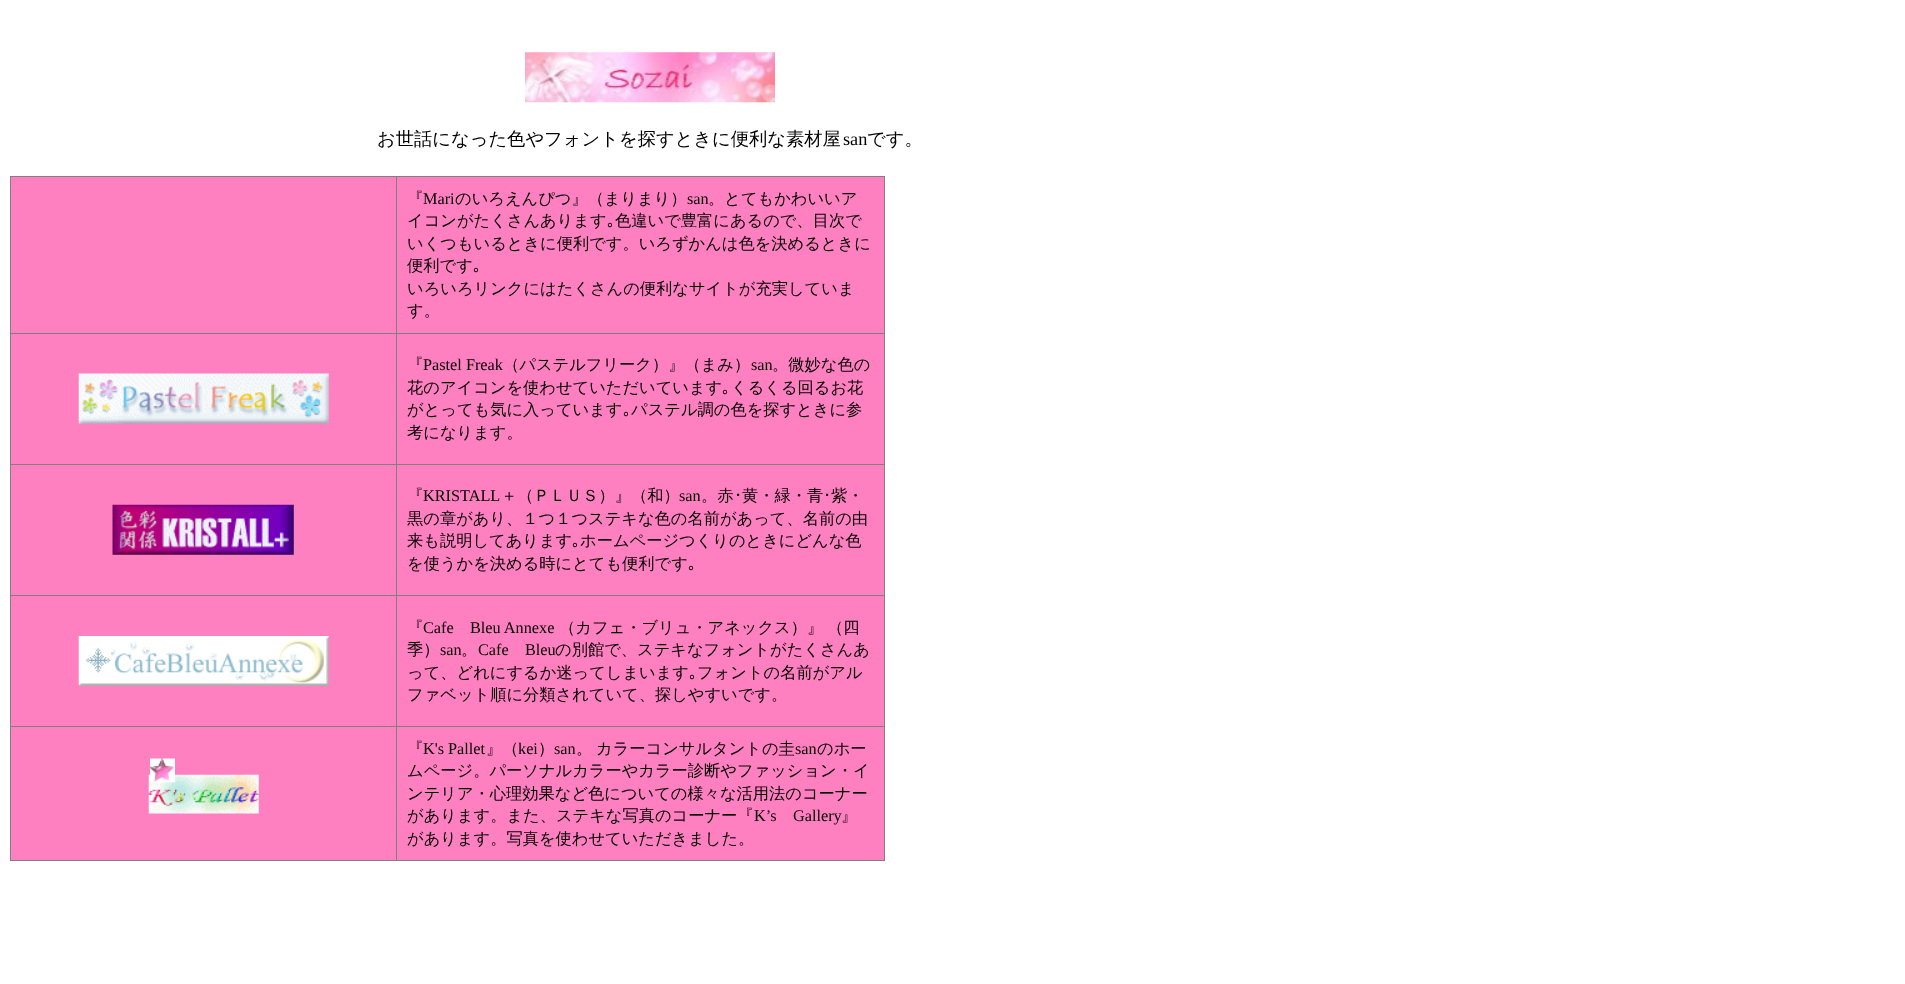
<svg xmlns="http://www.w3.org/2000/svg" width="1905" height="984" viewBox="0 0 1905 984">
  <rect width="100%" height="100%" fill="#ffffff"/>
  <image x="525" y="52" width="250" height="51" href="img1.png"/>
  <text x="377" y="145" font-family="WenQuanYi Zen Hei" font-size="18.3" font-weight="500" fill="#000000">お世話になった色やフォントを探すときに便利な素材屋</text>
  <text x="843" y="145" font-family="Liberation Serif" font-size="18.3" fill="#000000">san</text>
  <text x="867" y="145" font-family="WenQuanYi Zen Hei" font-size="18.3" font-weight="500" fill="#000000">です。</text>
  <rect x="11" y="177" width="873" height="683" fill="#ff80c0"/>
  <image x="148" y="774" width="111" height="40" href="img6.png"/>
  <image x="150" y="758" width="25" height="25" href="img2.png"/>
  <rect x="10" y="176" width="875" height="1" fill="#808080"/>
  <rect x="884" y="176" width="1" height="685" fill="#808080"/>
  <rect x="10" y="860" width="875" height="1" fill="#808080"/>
  <rect x="10" y="176" width="1" height="685" fill="#808080"/>
  <rect x="396" y="333" width="489" height="1" fill="#808080"/>
  <rect x="396" y="464" width="489" height="1" fill="#808080"/>
  <rect x="396" y="595" width="489" height="1" fill="#808080"/>
  <rect x="396" y="726" width="489" height="1" fill="#808080"/>
  <rect x="396" y="726" width="1" height="135" fill="#808080"/>
  <rect x="10" y="726" width="388" height="1" fill="#808080"/>
  <rect x="396" y="595" width="1" height="133" fill="#808080"/>
  <rect x="10" y="595" width="388" height="1" fill="#808080"/>
  <rect x="396" y="464" width="1" height="132" fill="#808080"/>
  <rect x="10" y="464" width="388" height="1" fill="#808080"/>
  <rect x="396" y="333" width="1" height="132" fill="#808080"/>
  <rect x="10" y="333" width="388" height="1" fill="#808080"/>
  <rect x="396" y="176" width="1" height="158" fill="#808080"/>
  <text x="407" y="204" font-family="WenQuanYi Zen Hei" font-size="16.25" font-weight="500" fill="#000000">『</text>
  <text x="423" y="204" font-family="Liberation Serif" font-size="16.25" fill="#000000">Mari</text>
  <text x="455" y="204" font-family="WenQuanYi Zen Hei" font-size="16.25" font-weight="500" fill="#000000">のいろえんぴつ』（まりまり）</text>
  <text x="687" y="204" font-family="Liberation Serif" font-size="16.25" fill="#000000">san</text>
  <text x="708" y="204" font-family="WenQuanYi Zen Hei" font-size="16.25" font-weight="500" fill="#000000">。とてもかわいいア</text>
  <text x="407" y="226" font-family="WenQuanYi Zen Hei" font-size="16.25" font-weight="500" fill="#000000">イコンがたくさんあります</text>
  <text x="607" y="226" font-family="IPAGothic" font-size="16.25" fill="#000000">｡</text>
  <text x="615" y="226" font-family="WenQuanYi Zen Hei" font-size="16.25" font-weight="500" fill="#000000">色違いで豊富にあるので、目次で</text>
  <text x="407" y="249" font-family="WenQuanYi Zen Hei" font-size="16.25" font-weight="500" fill="#000000">いくつもいるときに便利です。いろずかんは色を決めるときに</text>
  <text x="407" y="271" font-family="WenQuanYi Zen Hei" font-size="16.25" font-weight="500" fill="#000000">便利です</text>
  <text x="473" y="271" font-family="IPAGothic" font-size="16.25" fill="#000000">｡</text>
  <text x="407" y="294" font-family="WenQuanYi Zen Hei" font-size="16.25" font-weight="500" fill="#000000">いろいろリンクにはたくさんの便利なサイトが充実していま</text>
  <text x="407" y="316" font-family="WenQuanYi Zen Hei" font-size="16.25" font-weight="500" fill="#000000">す。</text>
  <image x="78" y="373" width="251" height="51" href="img3.png"/>
  <text x="407" y="370" font-family="WenQuanYi Zen Hei" font-size="16.25" font-weight="500" fill="#000000">『</text>
  <text x="423" y="370" font-family="Liberation Serif" font-size="16.25" fill="#000000">Pastel Freak</text>
  <text x="503" y="370" font-family="WenQuanYi Zen Hei" font-size="16.25" font-weight="500" fill="#000000">（パステルフリーク）』（まみ）</text>
  <text x="751" y="370" font-family="Liberation Serif" font-size="16.25" fill="#000000">san</text>
  <text x="772" y="370" font-family="WenQuanYi Zen Hei" font-size="16.25" font-weight="500" fill="#000000">。微妙な色の</text>
  <text x="407" y="393" font-family="WenQuanYi Zen Hei" font-size="16.25" font-weight="500" fill="#000000">花のアイコンを使わせていただいています</text>
  <text x="722" y="393" font-family="IPAGothic" font-size="16.25" fill="#000000">｡</text>
  <text x="731" y="393" font-family="WenQuanYi Zen Hei" font-size="16.25" font-weight="500" fill="#000000">くるくる回るお花</text>
  <text x="407" y="415" font-family="WenQuanYi Zen Hei" font-size="16.25" font-weight="500" fill="#000000">がとっても気に入っています</text>
  <text x="623" y="415" font-family="IPAGothic" font-size="16.25" fill="#000000">｡</text>
  <text x="631" y="415" font-family="WenQuanYi Zen Hei" font-size="16.25" font-weight="500" fill="#000000">パステル調の色を探すときに参</text>
  <text x="407" y="438" font-family="WenQuanYi Zen Hei" font-size="16.25" font-weight="500" fill="#000000">考になります。</text>
  <image x="112" y="504" width="182" height="51" href="img4.png"/>
  <text x="407" y="501" font-family="WenQuanYi Zen Hei" font-size="16.25" font-weight="500" fill="#000000">『</text>
  <text x="423" y="501" font-family="Liberation Serif" font-size="16.25" fill="#000000">KRISTALL</text>
  <text x="501" y="501" font-family="WenQuanYi Zen Hei" font-size="16.25" font-weight="500" fill="#000000">＋（ＰＬＵＳ）』（和）</text>
  <text x="679" y="501" font-family="Liberation Serif" font-size="16.25" fill="#000000">san</text>
  <text x="701" y="501" font-family="WenQuanYi Zen Hei" font-size="16.25" font-weight="500" fill="#000000">。赤</text>
  <text x="734" y="501" font-family="IPAGothic" font-size="16.25" fill="#000000">･</text>
  <text x="742" y="501" font-family="WenQuanYi Zen Hei" font-size="16.25" font-weight="500" fill="#000000">黄・緑・青</text>
  <text x="823" y="501" font-family="IPAGothic" font-size="16.25" fill="#000000">･</text>
  <text x="831" y="501" font-family="WenQuanYi Zen Hei" font-size="16.25" font-weight="500" fill="#000000">紫・</text>
  <text x="407" y="524" font-family="WenQuanYi Zen Hei" font-size="16.25" font-weight="500" fill="#000000">黒の章があり、１つ１つステキな色の名前があって、名前の由</text>
  <text x="407" y="546" font-family="WenQuanYi Zen Hei" font-size="16.25" font-weight="500" fill="#000000">来も説明してあります</text>
  <text x="572" y="546" font-family="IPAGothic" font-size="16.25" fill="#000000">｡</text>
  <text x="580" y="546" font-family="WenQuanYi Zen Hei" font-size="16.25" font-weight="500" fill="#000000">ホームページつくりのときにどんな色</text>
  <text x="407" y="569" font-family="WenQuanYi Zen Hei" font-size="16.25" font-weight="500" fill="#000000">を使うかを決める時にとても便利です</text>
  <text x="688" y="569" font-family="IPAGothic" font-size="16.25" fill="#000000">｡</text>
  <image x="78" y="636" width="251" height="50" href="img5.png"/>
  <text x="407" y="633" font-family="WenQuanYi Zen Hei" font-size="16.25" font-weight="500" fill="#000000">『</text>
  <text x="423" y="633" font-family="Liberation Serif" font-size="16.25" fill="#000000">Cafe</text>
  <text x="470" y="633" font-family="Liberation Serif" font-size="16.25" fill="#000000">Bleu Annexe</text>
  <text x="559" y="633" font-family="WenQuanYi Zen Hei" font-size="16.25" font-weight="500" fill="#000000">（カフェ・ブリュ・アネックス）』</text>
  <text x="827" y="633" font-family="WenQuanYi Zen Hei" font-size="16.25" font-weight="500" fill="#000000">（四</text>
  <text x="407" y="655" font-family="WenQuanYi Zen Hei" font-size="16.25" font-weight="500" fill="#000000">季）</text>
  <text x="440" y="655" font-family="Liberation Serif" font-size="16.25" fill="#000000">san</text>
  <text x="461" y="655" font-family="WenQuanYi Zen Hei" font-size="16.25" font-weight="500" fill="#000000">。</text>
  <text x="478" y="655" font-family="Liberation Serif" font-size="16.25" fill="#000000">Cafe</text>
  <text x="525" y="655" font-family="Liberation Serif" font-size="16.25" fill="#000000">Bleu</text>
  <text x="555" y="655" font-family="WenQuanYi Zen Hei" font-size="16.25" font-weight="500" fill="#000000">の別館で、ステキなフォントがたくさんあ</text>
  <text x="407" y="678" font-family="WenQuanYi Zen Hei" font-size="16.25" font-weight="500" fill="#000000">って、どれにするか迷ってしまいます</text>
  <text x="689" y="678" font-family="IPAGothic" font-size="16.25" fill="#000000">｡</text>
  <text x="697" y="678" font-family="WenQuanYi Zen Hei" font-size="16.25" font-weight="500" fill="#000000">フォントの名前がアル</text>
  <text x="407" y="700" font-family="WenQuanYi Zen Hei" font-size="16.25" font-weight="500" fill="#000000">ファベット順に分類されていて、探しやすいです。</text>
  <text x="407" y="754" font-family="WenQuanYi Zen Hei" font-size="16.25" font-weight="500" fill="#000000">『</text>
  <text x="423" y="754" font-family="Liberation Serif" font-size="16.25" fill="#000000">K's Pallet</text>
  <text x="486" y="754" font-family="WenQuanYi Zen Hei" font-size="16.25" font-weight="500" fill="#000000">』（</text>
  <text x="518" y="754" font-family="Liberation Serif" font-size="16.25" fill="#000000">kei</text>
  <text x="538" y="754" font-family="WenQuanYi Zen Hei" font-size="16.25" font-weight="500" fill="#000000">）</text>
  <text x="554" y="754" font-family="Liberation Serif" font-size="16.25" fill="#000000">san</text>
  <text x="576" y="754" font-family="WenQuanYi Zen Hei" font-size="16.25" font-weight="500" fill="#000000">。</text>
  <text x="596" y="754" font-family="WenQuanYi Zen Hei" font-size="16.25" font-weight="500" fill="#000000">カラーコンサルタントの圭</text>
  <text x="795" y="754" font-family="Liberation Serif" font-size="16.25" fill="#000000">san</text>
  <text x="817" y="754" font-family="WenQuanYi Zen Hei" font-size="16.25" font-weight="500" fill="#000000">のホー</text>
  <text x="407" y="776" font-family="WenQuanYi Zen Hei" font-size="16.25" font-weight="500" fill="#000000">ムページ。パーソナルカラーやカラー診断やファッション・イ</text>
  <text x="407" y="799" font-family="WenQuanYi Zen Hei" font-size="16.25" font-weight="500" fill="#000000">ンテリア・心理効果など色についての様々な活用法のコーナー</text>
  <text x="407" y="821" font-family="WenQuanYi Zen Hei" font-size="16.25" font-weight="500" fill="#000000">があります。また、ステキな写真のコーナー『</text>
  <text x="754" y="821" font-family="Liberation Serif" font-size="16.25" fill="#000000">K’s</text>
  <text x="793" y="821" font-family="Liberation Serif" font-size="16.25" fill="#000000">Gallery</text>
  <text x="841" y="821" font-family="WenQuanYi Zen Hei" font-size="16.25" font-weight="500" fill="#000000">』</text>
  <text x="407" y="844" font-family="WenQuanYi Zen Hei" font-size="16.25" font-weight="500" fill="#000000">があります。写真を使わせていただきました。</text>
</svg>
